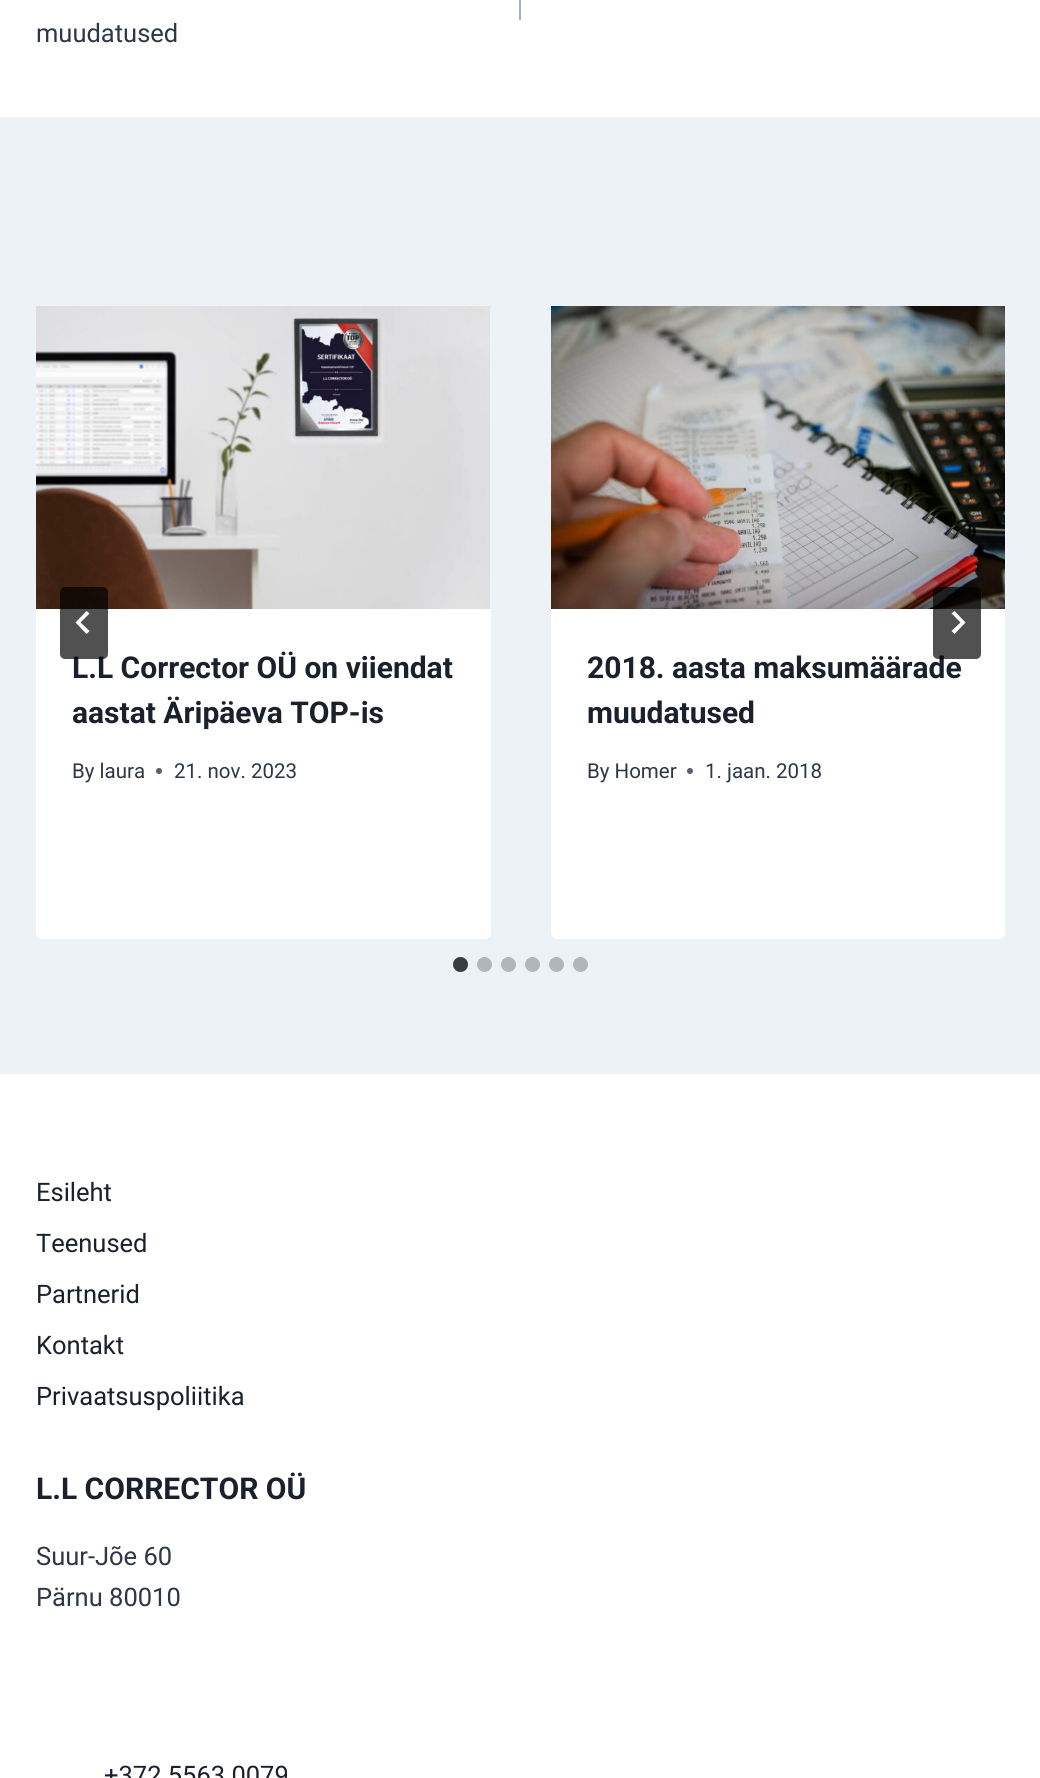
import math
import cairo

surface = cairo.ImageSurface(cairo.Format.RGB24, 1040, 1778)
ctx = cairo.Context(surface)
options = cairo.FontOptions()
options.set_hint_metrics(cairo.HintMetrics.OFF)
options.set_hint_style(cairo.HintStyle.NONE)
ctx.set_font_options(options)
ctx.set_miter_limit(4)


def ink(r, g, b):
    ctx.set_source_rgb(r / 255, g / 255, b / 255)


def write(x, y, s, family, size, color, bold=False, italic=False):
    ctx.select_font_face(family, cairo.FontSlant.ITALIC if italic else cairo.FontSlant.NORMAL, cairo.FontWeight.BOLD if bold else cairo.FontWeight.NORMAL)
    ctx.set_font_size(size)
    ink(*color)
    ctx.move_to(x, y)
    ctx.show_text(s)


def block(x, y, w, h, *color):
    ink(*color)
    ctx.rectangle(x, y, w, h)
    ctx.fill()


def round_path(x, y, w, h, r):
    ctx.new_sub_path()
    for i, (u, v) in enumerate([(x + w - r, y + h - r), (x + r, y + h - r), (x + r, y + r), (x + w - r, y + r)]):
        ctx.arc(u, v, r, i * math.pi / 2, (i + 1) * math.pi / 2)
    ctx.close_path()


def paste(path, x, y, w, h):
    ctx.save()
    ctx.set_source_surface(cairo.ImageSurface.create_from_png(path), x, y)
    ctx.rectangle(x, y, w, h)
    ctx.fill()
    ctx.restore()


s1 = dict(family="Roboto", size=25.5, color=(45, 55, 72))
s2 = dict(family="Roboto", size=30, color=(26, 32, 44), bold=True)
s3 = dict(family="Roboto", size=20.5, color=(45, 55, 72))
s4 = dict(family="Roboto", size=25.5, color=(26, 32, 44))

ink(255, 255, 255)
ctx.paint()
block(519, 0, 2, 20, 160, 174, 192)
write(36, 42, "muudatused", **s1)
block(0, 117, 1040, 957, 237, 242, 247)
ink(255, 255, 255)
round_path(36, 306, 455, 633, 6)
ctx.fill()
paste("pic1.png", 36, 306, 455, 303)
write(72, 678, "L.L Corrector OÜ on viiendat", **s2)
ctx.set_source_rgba(0, 0, 0, 0.68)
round_path(60, 587, 48, 72, 5)
ctx.fill()
ink(255, 255, 255)
ctx.new_path()
ctx.move_to(86.5, 611)
ctx.line_to(89.5, 613.5)
ctx.line_to(80.5, 622.5)
ctx.line_to(89.5, 631)
ctx.line_to(86.5, 634)
ctx.line_to(75.5, 622.5)
ctx.close_path()
ctx.fill()
round_path(551, 306, 454, 633, 6)
ctx.fill()
paste("pic2.png", 551, 306, 454, 303)
write(587, 678, "2018. aasta maksumäärade", **s2)
ctx.set_source_rgba(0, 0, 0, 0.68)
round_path(933, 587, 48, 72, 5)
ctx.fill()
ink(255, 255, 255)
ctx.new_path()
ctx.move_to(954.5, 611)
ctx.line_to(951.5, 613.5)
ctx.line_to(960.5, 622.5)
ctx.line_to(951.5, 631)
ctx.line_to(954.5, 634)
ctx.line_to(965.5, 622.5)
ctx.close_path()
ctx.fill()
write(72, 723, "aastat Äripäeva TOP-is", **s2)
write(72, 778, "By laura", **s3)
ink(87, 95, 109)
ctx.new_path()
ctx.arc(159, 771, 3, 0, 2 * math.pi)
ctx.fill()
write(174, 778, "21. nov. 2023", **s3)
write(587, 723, "muudatused", **s2)
write(587, 778, "By Homer", **s3)
ink(87, 95, 109)
ctx.new_path()
ctx.arc(690, 771, 3, 0, 2 * math.pi)
ctx.fill()
write(705, 778, "1. jaan. 2018", **s3)
ink(59, 61, 62)
ctx.new_path()
ctx.arc(460.5, 964.5, 7.5, 0, 2 * math.pi)
ctx.fill()
ink(178, 182, 185)
ctx.arc(484.5, 964.5, 7.5, 0, 2 * math.pi)
ctx.fill()
ctx.arc(508.5, 964.5, 7.5, 0, 2 * math.pi)
ctx.fill()
ctx.arc(532.5, 964.5, 7.5, 0, 2 * math.pi)
ctx.fill()
ctx.arc(556.5, 964.5, 7.5, 0, 2 * math.pi)
ctx.fill()
ctx.arc(580.5, 964.5, 7.5, 0, 2 * math.pi)
ctx.fill()
write(36, 1201, "Esileht", **s4)
write(36, 1252, "Teenused", **s4)
write(36, 1303, "Partnerid", **s4)
write(36, 1354, "Kontakt", **s4)
write(36, 1405, "Privaatsuspoliitika", **s4)
write(36, 1499, "L.L CORRECTOR OÜ", **s2)
write(36, 1565, "Suur-Jõe 60", **s1)
write(36, 1606, "Pärnu 80010", **s1)
write(104, 1784, "+372 5563 0079", **s4)
surface.write_to_png("screenshot.png")
